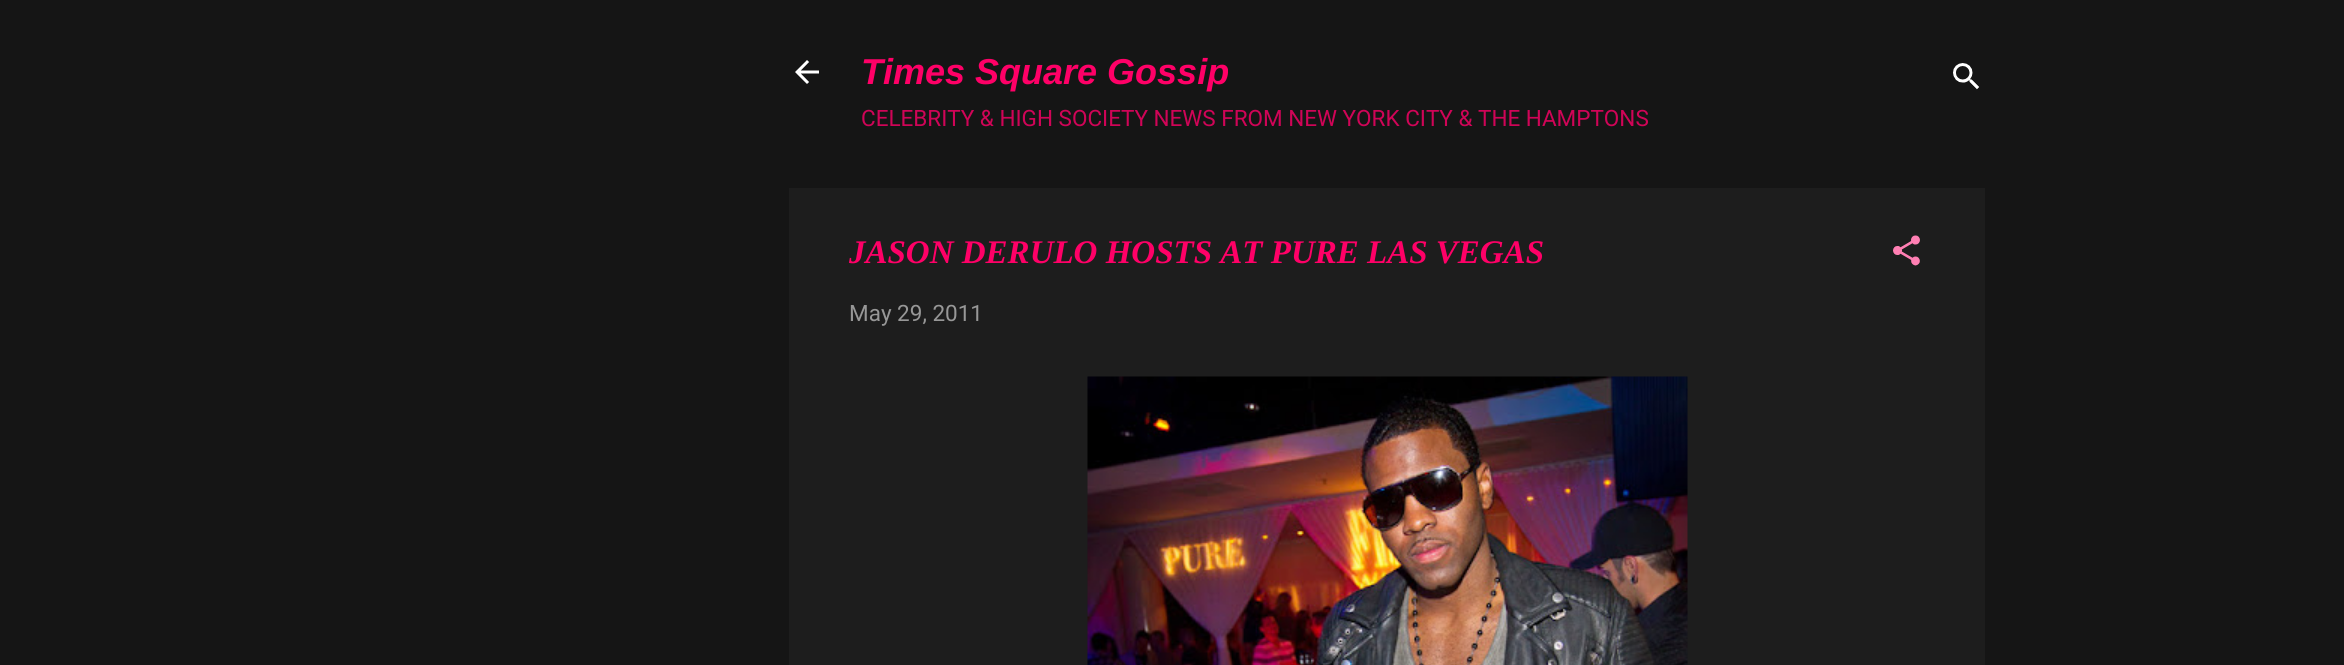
import math
import cairo

surface = cairo.ImageSurface(cairo.Format.RGB24, 2344, 665)
ctx = cairo.Context(surface)
options = cairo.FontOptions()
options.set_hint_metrics(cairo.HintMetrics.OFF)
options.set_hint_style(cairo.HintStyle.NONE)
ctx.set_font_options(options)
ctx.set_miter_limit(4)


def ink(r, g, b):
    ctx.set_source_rgb(r / 255, g / 255, b / 255)


def write(x, y, s, family, size, color, bold=False, italic=False):
    ctx.select_font_face(family, cairo.FontSlant.ITALIC if italic else cairo.FontSlant.NORMAL, cairo.FontWeight.BOLD if bold else cairo.FontWeight.NORMAL)
    ctx.set_font_size(size)
    ink(*color)
    ctx.move_to(x, y)
    ctx.show_text(s)


def block(x, y, w, h, *color):
    ink(*color)
    ctx.rectangle(x, y, w, h)
    ctx.fill()


def paste(path, x, y, w, h):
    ctx.save()
    ctx.set_source_surface(cairo.ImageSurface.create_from_png(path), x, y)
    ctx.rectangle(x, y, w, h)
    ctx.fill()
    ctx.restore()


s1 = dict(family="Liberation Sans", size=36, color=(255, 0, 103), bold=True, italic=True)
s2 = dict(family="Roboto", size=22.5, color=(208, 4, 87))
s3 = dict(family="Liberation Serif", size=33, color=(255, 0, 103), bold=True, italic=True)
s4 = dict(family="Roboto", size=22.5, color=(151, 151, 151))

ink(21, 21, 21)
ctx.paint()
paste("pic1.png", 795, 60, 24, 24)
write(861, 84, "Times Square Gossip", **s1)
write(861, 126, "CELEBRITY & HIGH SOCIETY NEWS FROM NEW YORK CITY & THE HAMPTONS", **s2)
paste("pic2.png", 1953, 63, 26, 27)
block(789, 188, 1196, 477, 29, 29, 29)
write(849, 263, "JASON DERULO HOSTS AT PURE LAS VEGAS", **s3)
paste("pic3.png", 1893, 235, 27, 31)
write(849, 321, "May 29, 2011", **s4)
paste("pic4.png", 1087, 376, 601, 289)
surface.write_to_png("screenshot.png")
